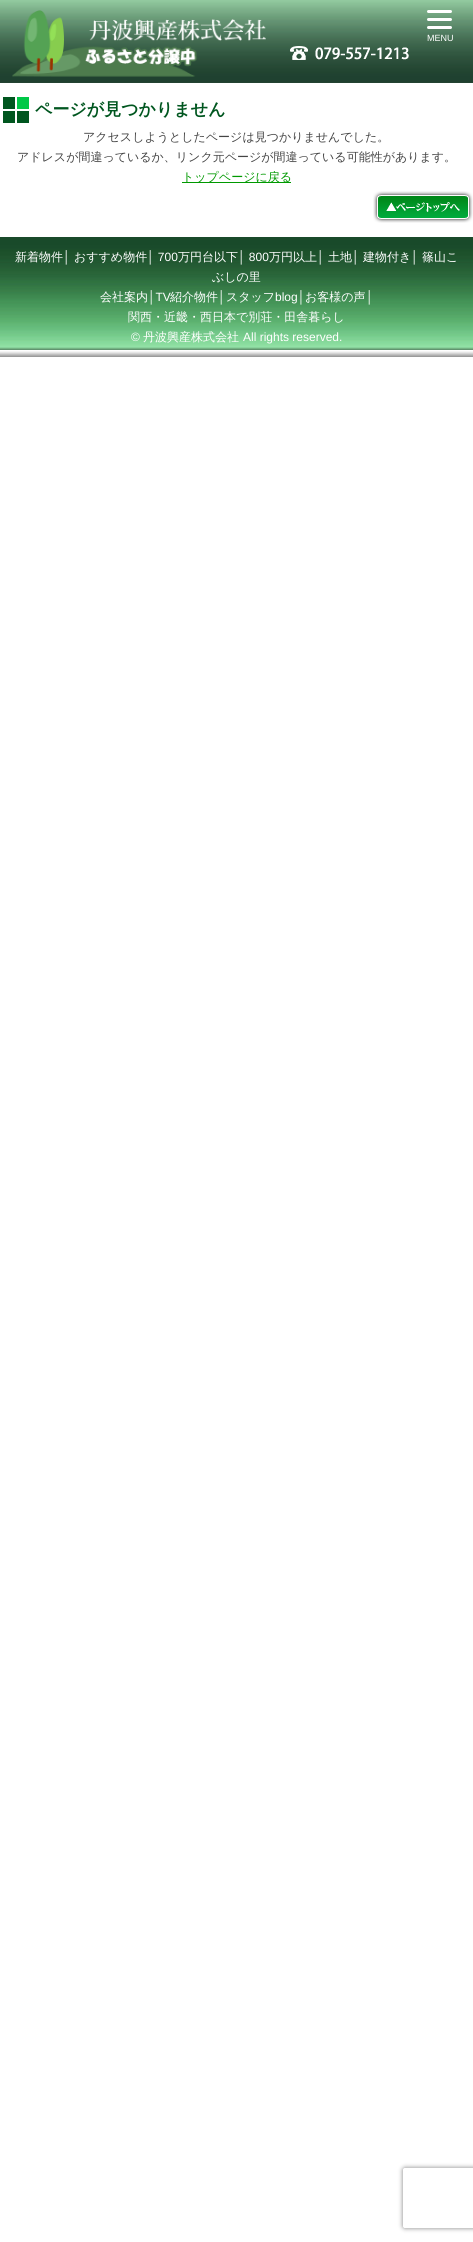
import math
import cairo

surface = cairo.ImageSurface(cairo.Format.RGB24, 473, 2242)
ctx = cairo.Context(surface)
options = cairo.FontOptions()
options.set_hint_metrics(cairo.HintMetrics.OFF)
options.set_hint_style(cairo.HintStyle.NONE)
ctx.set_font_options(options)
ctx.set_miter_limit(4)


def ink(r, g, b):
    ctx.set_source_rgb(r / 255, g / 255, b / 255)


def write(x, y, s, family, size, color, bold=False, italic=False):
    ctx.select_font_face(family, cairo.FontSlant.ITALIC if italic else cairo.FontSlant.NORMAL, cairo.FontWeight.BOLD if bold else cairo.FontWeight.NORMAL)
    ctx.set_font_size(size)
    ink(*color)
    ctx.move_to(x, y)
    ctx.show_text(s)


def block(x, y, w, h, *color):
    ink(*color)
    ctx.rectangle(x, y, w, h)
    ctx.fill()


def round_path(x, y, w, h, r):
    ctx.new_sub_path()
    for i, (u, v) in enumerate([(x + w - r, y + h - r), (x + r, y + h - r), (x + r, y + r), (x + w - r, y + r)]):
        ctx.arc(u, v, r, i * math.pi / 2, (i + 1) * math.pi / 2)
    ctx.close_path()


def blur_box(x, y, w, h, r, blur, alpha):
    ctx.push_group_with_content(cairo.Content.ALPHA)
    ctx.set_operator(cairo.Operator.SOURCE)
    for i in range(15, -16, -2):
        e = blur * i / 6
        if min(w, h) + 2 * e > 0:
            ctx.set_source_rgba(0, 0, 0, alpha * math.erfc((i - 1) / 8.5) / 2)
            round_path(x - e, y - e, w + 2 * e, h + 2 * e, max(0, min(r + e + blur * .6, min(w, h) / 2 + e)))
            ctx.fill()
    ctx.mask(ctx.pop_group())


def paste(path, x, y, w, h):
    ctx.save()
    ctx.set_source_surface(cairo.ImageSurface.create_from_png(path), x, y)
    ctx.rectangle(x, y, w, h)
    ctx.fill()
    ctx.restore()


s1 = dict(family="Liberation Sans", size=9, color=(255, 255, 255))
s2 = dict(family="WenQuanYi Zen Hei", size=17, color=(0, 86, 31), bold=True)
s3 = dict(family="WenQuanYi Zen Hei Medium", size=12, color=(68, 68, 68))
s4 = dict(family="WenQuanYi Zen Hei Medium", size=12, color=(0, 153, 0))
s5 = dict(family="WenQuanYi Zen Hei Medium", size=12, color=(255, 255, 255))
s6 = dict(family="Liberation Sans", size=12, color=(255, 255, 255))

ink(255, 255, 255)
ctx.paint()
paste("pic1.png", 0, 0, 473, 83)
paste("pic2.png", 12, 10, 254, 67)
paste("pic3.png", 290, 46, 119, 14)
ink(255, 255, 255)
round_path(427, 10, 25, 3, 1.5)
ctx.fill()
round_path(427, 18, 25, 3, 1.5)
ctx.fill()
round_path(427, 26, 25, 3, 1.5)
ctx.fill()
write(427, 41, "MENU", **s1)
paste("pic4.png", 3, 97, 26, 26)
write(35, 115, "ページが見つかりません", **s2)
write(83, 141, "アクセスしようとしたページは見つかりませんでした。", **s3)
write(17, 161, "アドレスが間違っているか、リンク元ページが間違っている可能性があります。", **s3)
block(182, 182, 109, 1, 0, 153, 0)
write(182, 181, "トップページに戻る", **s4)
paste("pic5.png", 373, 191, 100, 32)
paste("pic6.png", 0, 237, 473, 120)
write(15, 261, "新着物件", **s5)
write(63, 261, "│", **s6)
write(74, 261, "おすすめ物件", **s5)
write(147, 261, "│ 700", **s6)
write(178, 261, "万円台以下", **s5)
write(238, 261, "│ 800", **s6)
write(269, 261, "万円以上", **s5)
write(317, 261, "│", **s6)
write(328, 261, "土地", **s5)
write(352, 261, "│", **s6)
write(363, 261, "建物付き", **s5)
write(411, 261, "│", **s6)
write(422, 261, "篠山こ", **s5)
write(212, 281, "ぶしの里", **s5)
write(100, 301, "会社案内", **s5)
write(148, 301, "│TV", **s6)
write(170, 301, "紹介物件", **s5)
write(218, 301, "│", **s6)
write(226, 301, "スタッフ", **s5)
write(275, 301, "blog│", **s6)
write(305, 301, "お客様の声", **s5)
write(366, 301, "│", **s6)
write(128, 321, "関西・近畿・西日本で別荘・田舎暮らし", **s5)
write(131, 341, "©", **s6)
write(143, 341, "丹波興産株式会社", **s5)
write(243, 341, "All rights reserved.", **s6)
ctx.save()
ctx.set_fill_rule(cairo.FillRule.EVEN_ODD)
ctx.new_path()
ctx.move_to(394, 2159)
ctx.line_to(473, 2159)
ctx.line_to(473, 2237)
ctx.line_to(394, 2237)
ctx.close_path()
ctx.move_to(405, 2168)
ctx.line_to(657, 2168)
ctx.curve_to(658, 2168, 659, 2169, 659, 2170)
ctx.line_to(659, 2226)
ctx.curve_to(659, 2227, 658, 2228, 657, 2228)
ctx.line_to(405, 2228)
ctx.curve_to(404, 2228, 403, 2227, 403, 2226)
ctx.line_to(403, 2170)
ctx.curve_to(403, 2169, 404, 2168, 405, 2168)
ctx.close_path()
ctx.clip()
ink(128, 128, 128)
blur_box(403, 2168, 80, 60, 2, 2.5, 1)
ctx.restore()
surface.write_to_png("screenshot.png")
